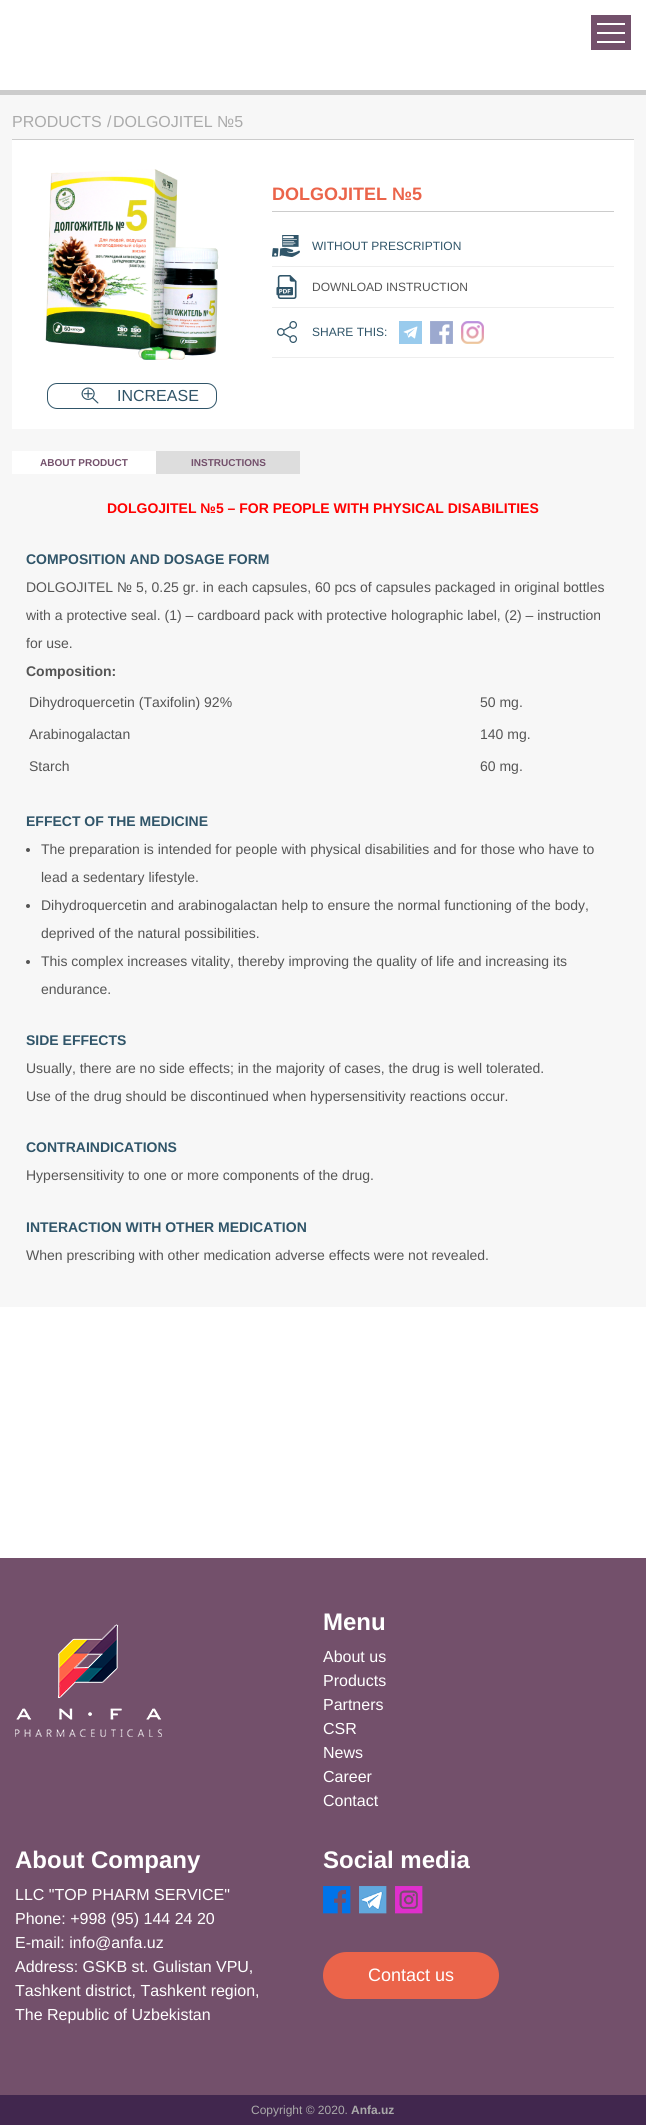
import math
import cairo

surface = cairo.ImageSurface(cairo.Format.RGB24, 646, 2125)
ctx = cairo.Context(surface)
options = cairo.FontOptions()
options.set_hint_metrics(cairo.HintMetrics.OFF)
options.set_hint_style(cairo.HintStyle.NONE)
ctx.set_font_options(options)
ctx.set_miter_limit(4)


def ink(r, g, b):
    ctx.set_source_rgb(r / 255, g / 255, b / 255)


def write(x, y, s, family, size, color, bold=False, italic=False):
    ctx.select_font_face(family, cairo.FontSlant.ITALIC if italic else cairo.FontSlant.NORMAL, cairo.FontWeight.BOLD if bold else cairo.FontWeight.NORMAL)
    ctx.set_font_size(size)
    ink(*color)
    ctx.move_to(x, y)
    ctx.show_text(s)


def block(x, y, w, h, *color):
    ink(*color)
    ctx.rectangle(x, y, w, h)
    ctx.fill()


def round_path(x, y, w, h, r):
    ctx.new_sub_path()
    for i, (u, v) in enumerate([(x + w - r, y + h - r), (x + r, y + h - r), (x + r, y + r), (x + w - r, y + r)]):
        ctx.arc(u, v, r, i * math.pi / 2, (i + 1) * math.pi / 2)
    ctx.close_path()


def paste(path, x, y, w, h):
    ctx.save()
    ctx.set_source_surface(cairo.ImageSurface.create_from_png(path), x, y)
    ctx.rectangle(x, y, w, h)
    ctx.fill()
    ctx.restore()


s1 = dict(family="Liberation Sans", size=16, color=(170, 170, 170))
s2 = dict(family="Liberation Sans", size=18, color=(235, 100, 74), bold=True)
s3 = dict(family="Liberation Sans", size=12, color=(48, 85, 105))
s4 = dict(family="Liberation Sans", size=12, color=(85, 85, 85))
s5 = dict(family="Liberation Sans", size=16, color=(48, 85, 105))
s6 = dict(family="Liberation Sans", size=10, color=(115, 80, 107), bold=True)
s7 = dict(family="Liberation Sans", size=14, color=(255, 0, 0), bold=True)
s8 = dict(family="Liberation Sans", size=14, color=(48, 85, 105), bold=True)
s9 = dict(family="Liberation Sans", size=14, color=(85, 85, 85))
s10 = dict(family="Liberation Sans", size=14, color=(85, 85, 85), bold=True)
s11 = dict(family="Liberation Sans", size=24, color=(255, 255, 255), bold=True)
s12 = dict(family="Liberation Sans", size=16, color=(255, 255, 255))
s13 = dict(family="Liberation Sans", size=18, color=(255, 255, 255))
s14 = dict(family="Liberation Sans", size=12, color=(170, 170, 170))
s15 = dict(family="Liberation Sans", size=12, color=(170, 170, 170), bold=True)

ink(255, 255, 255)
ctx.paint()
block(591, 15, 40, 35, 115, 80, 107)
block(597, 32, 28, 2, 255, 255, 255)
block(597, 23, 28, 2, 255, 255, 255)
block(597, 41, 28, 2, 255, 255, 255)
block(0, 95, 646, 1212, 247, 247, 247)
block(0, 90, 646, 5, 204, 204, 204)
write(12, 127, "PRODUCTS", **s1)
write(107, 127, "/", **s1)
write(113, 127, "DOLGOJITEL №5", **s1)
block(12, 140, 622, 289, 255, 255, 255)
block(12, 139, 622, 1, 204, 204, 204)
block(272, 211, 342, 1, 204, 204, 204)
write(272, 200, "DOLGOJITEL №5", **s2)
paste("pic1.png", 272, 235, 28, 22)
block(272, 266, 342, 1, 238, 238, 238)
write(312, 250, "WITHOUT PRESCRIPTION", **s3)
paste("pic2.png", 276, 275, 21, 24)
block(272, 307, 342, 1, 238, 238, 238)
write(312, 291, "DOWNLOAD INSTRUCTION", **s4)
paste("pic3.png", 277, 321, 20, 22)
block(272, 357, 342, 1, 238, 238, 238)
write(312, 336, "SHARE THIS:", **s3)
paste("pic4.png", 399, 321, 23, 23)
paste("pic5.png", 430, 321, 23, 23)
paste("pic6.png", 461, 321, 23, 23)
paste("pic7.png", 45, 169, 174, 191)
paste("pic8.png", 81, 387, 18, 17)
round_path(47.5, 383.5, 169, 25, 9.5)
ctx.set_line_width(1)
ctx.stroke()
write(117, 401, "INCREASE", **s5)
block(12, 451, 144, 23, 255, 255, 255)
write(40, 466, "ABOUT PRODUCT", **s6)
block(156, 451, 144, 23, 221, 221, 221)
write(191, 466, "INSTRUCTIONS", **s6)
write(107, 513, "DOLGOJITEL №5 – FOR PEOPLE WITH PHYSICAL DISABILITIES", **s7)
write(26, 564, "COMPOSITION AND DOSAGE FORM", **s8)
write(26, 592, "DOLGOJITEL № 5, 0.25 gr. in each capsules, 60 pcs of capsules packaged in original bottles", **s9)
write(26, 620, "with a protective seal. (1) – cardboard pack with protective holographic label, (2) – instruction", **s9)
write(26, 648, "for use.", **s9)
write(26, 676, "Composition:", **s10)
write(29, 707, "Dihydroquercetin (Taxifolin) 92%", **s9)
write(480, 707, "50 mg.", **s9)
write(29, 739, "Arabinogalactan", **s9)
write(480, 739, "140 mg.", **s9)
write(29, 771, "Starch", **s9)
write(480, 771, "60 mg.", **s9)
write(26, 826, "EFFECT OF THE MEDICINE", **s8)
ink(85, 85, 85)
ctx.new_path()
ctx.arc(28, 850, 2, 0, 2 * math.pi)
ctx.fill()
write(41, 854, "The preparation is intended for people with physical disabilities and for those who have to", **s9)
write(41, 882, "lead a sedentary lifestyle.", **s9)
ctx.new_path()
ctx.arc(28, 906, 2, 0, 2 * math.pi)
ctx.fill()
write(41, 910, "Dihydroquercetin and arabinogalactan help to ensure the normal functioning of the body,", **s9)
write(41, 938, "deprived of the natural possibilities.", **s9)
ctx.new_path()
ctx.arc(28, 962, 2, 0, 2 * math.pi)
ctx.fill()
write(41, 966, "This complex increases vitality, thereby improving the quality of life and increasing its", **s9)
write(41, 994, "endurance.", **s9)
write(26, 1045, "SIDE EFFECTS", **s8)
write(26, 1073, "Usually, there are no side effects; in the majority of cases, the drug is well tolerated.", **s9)
write(26, 1101, "Use of the drug should be discontinued when hypersensitivity reactions occur.", **s9)
write(26, 1152, "CONTRAINDICATIONS", **s8)
write(26, 1180, "Hypersensitivity to one or more components of the drug.", **s9)
write(26, 1232, "INTERACTION WITH OTHER MEDICATION", **s8)
write(26, 1260, "When prescribing with other medication adverse effects were not revealed.", **s9)
block(0, 1558, 646, 537, 115, 80, 107)
paste("pic9.png", 15, 1624, 147, 113)
write(323, 1630, "Menu", **s11)
write(323, 1662, "About us", **s12)
write(323, 1686, "Products", **s12)
write(323, 1710, "Partners", **s12)
write(323, 1734, "CSR", **s12)
write(323, 1758, "News", **s12)
write(323, 1782, "Career", **s12)
write(323, 1806, "Contact", **s12)
write(15, 1868, "About Company", **s11)
write(15, 1900, "LLC \"TOP PHARM SERVICE\"", **s12)
write(15, 1924, "Phone: +998 (95) 144 24 20", **s12)
write(15, 1948, "E-mail: info@anfa.uz", **s12)
write(15, 1972, "Address: GSKB st. Gulistan VPU,", **s12)
write(15, 1996, "Tashkent district, Tashkent region,", **s12)
write(15, 2020, "The Republic of Uzbekistan", **s12)
write(323, 1868, "Social media", **s11)
paste("pic10.png", 323, 1886, 28, 28)
paste("pic11.png", 359, 1886, 28, 28)
paste("pic12.png", 395, 1886, 28, 28)
ink(235, 100, 74)
round_path(323, 1952, 176, 47, 23.5)
ctx.fill()
write(368, 1981, "Contact us", **s13)
block(0, 2095, 646, 30, 65, 39, 78)
write(251, 2114, "Copyright © 2020.", **s14)
write(351, 2114, "Anfa.uz", **s15)
surface.write_to_png("screenshot.png")
